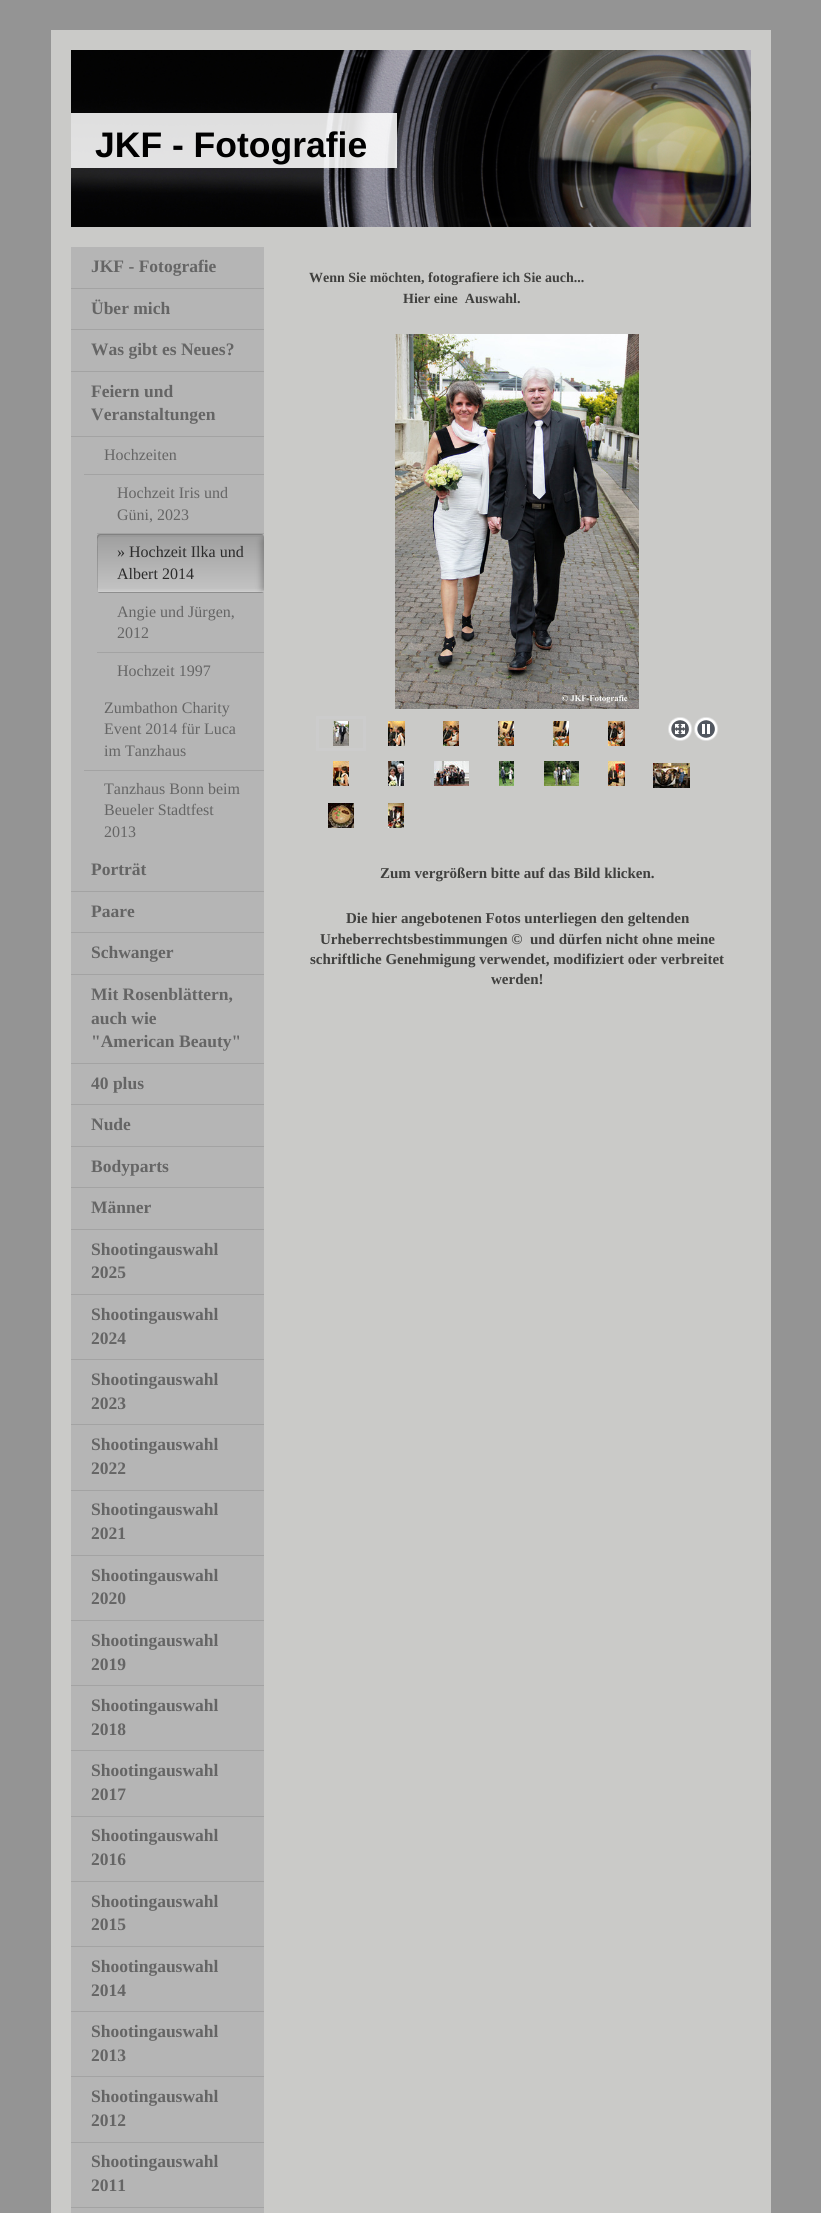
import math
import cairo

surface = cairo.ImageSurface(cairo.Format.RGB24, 821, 2213)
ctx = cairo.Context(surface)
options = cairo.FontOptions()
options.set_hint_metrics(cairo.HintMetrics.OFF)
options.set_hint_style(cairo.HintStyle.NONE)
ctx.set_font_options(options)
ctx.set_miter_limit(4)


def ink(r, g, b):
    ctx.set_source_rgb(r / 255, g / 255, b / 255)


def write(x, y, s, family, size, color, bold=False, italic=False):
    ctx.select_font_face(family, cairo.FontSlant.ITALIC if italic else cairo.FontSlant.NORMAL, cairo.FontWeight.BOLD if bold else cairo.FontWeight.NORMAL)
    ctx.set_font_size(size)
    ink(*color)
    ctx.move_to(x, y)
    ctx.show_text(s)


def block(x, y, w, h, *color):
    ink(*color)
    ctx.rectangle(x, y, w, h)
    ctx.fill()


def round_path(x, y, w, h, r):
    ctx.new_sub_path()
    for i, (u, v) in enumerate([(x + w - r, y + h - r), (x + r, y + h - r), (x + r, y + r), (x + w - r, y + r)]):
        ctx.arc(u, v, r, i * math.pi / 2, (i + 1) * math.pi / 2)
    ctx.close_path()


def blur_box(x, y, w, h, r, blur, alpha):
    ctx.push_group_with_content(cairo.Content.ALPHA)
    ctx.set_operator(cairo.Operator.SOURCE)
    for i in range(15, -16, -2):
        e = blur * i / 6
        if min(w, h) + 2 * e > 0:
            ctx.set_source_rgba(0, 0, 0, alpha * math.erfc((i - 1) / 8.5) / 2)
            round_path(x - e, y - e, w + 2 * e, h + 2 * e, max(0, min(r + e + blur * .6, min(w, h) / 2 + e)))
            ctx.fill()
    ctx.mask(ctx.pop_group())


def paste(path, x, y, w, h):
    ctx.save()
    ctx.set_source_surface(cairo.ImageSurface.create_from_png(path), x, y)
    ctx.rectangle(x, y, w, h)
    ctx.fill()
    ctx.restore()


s1 = dict(family="Liberation Sans", size=35.5, color=(0, 0, 0), bold=True)
s2 = dict(family="Liberation Serif", size=17.5, color=(101, 101, 101), bold=True)
s3 = dict(family="Liberation Serif", size=16, color=(101, 101, 101))
s4 = dict(family="Liberation Serif", size=16, color=(43, 43, 43))
s5 = dict(family="Liberation Serif", size=14, color=(64, 64, 62), bold=True)
s6 = dict(family="Liberation Serif", size=15, color=(64, 64, 62), bold=True)

ink(148, 148, 148)
ctx.paint()
block(51, 30, 720, 2183, 202, 202, 200)
paste("pic1.png", 71, 50, 680, 177)
ctx.set_source_rgba(1, 1, 1, 0.87)
ctx.rectangle(71, 113, 326, 55)
ctx.fill()
write(95, 157, "JKF - Fotografie", **s1)
block(71, 247, 193, 1966, 181, 181, 181)
block(99, 592, 164, 1, 163, 163, 163)
block(71, 288, 193, 1, 163, 163, 163)
write(91, 272, "JKF - Fotografie", **s2)
block(71, 329, 193, 1, 163, 163, 163)
write(91, 314, "Über mich", **s2)
block(71, 371, 193, 1, 163, 163, 163)
write(91, 355, "Was gibt es Neues?", **s2)
block(71, 436, 193, 1, 163, 163, 163)
write(91, 397, "Feiern und", **s2)
write(91, 420, "Veranstaltungen", **s2)
block(84, 474, 180, 1, 163, 163, 163)
write(104, 460, "Hochzeiten", **s3)
block(97, 533, 167, 1, 163, 163, 163)
write(117, 498, "Hochzeit Iris und", **s3)
write(117, 520, "Güni, 2023", **s3)
ctx.save()
round_path(97, 534, 167, 59, 3)
ctx.clip()
gradient = cairo.LinearGradient(97, 592, 97, 534)
gradient.add_color_stop_rgba(0, 0.769, 0.769, 0.769, 1)
gradient.add_color_stop_rgba(1, 0.62, 0.62, 0.62, 1)
ctx.set_source(gradient)
ctx.new_path()
ctx.move_to(100, 534)
ctx.line_to(261, 534)
ctx.curve_to(262.5, 534, 264, 535.5, 264, 537)
ctx.line_to(264, 592)
ctx.line_to(97, 592)
ctx.line_to(97, 537)
ctx.curve_to(97, 535.5, 98.5, 534, 100, 534)
ctx.close_path()
ctx.fill()
gradient = cairo.LinearGradient(97, 650, 97, 592)
gradient.add_color_stop_rgba(0, 0.69, 0.69, 0.69, 1)
gradient.add_color_stop_rgba(1, 0.557, 0.557, 0.557, 1)
ctx.set_source(gradient)
ctx.rectangle(97, 592, 167, 1)
ctx.fill()
ctx.restore()
ctx.set_source_rgba(0, 0, 0, 0.15)
ctx.new_path()
ctx.move_to(101, 535)
ctx.line_to(263, 535)
ctx.curve_to(263, 534, 262, 534, 261, 534)
ctx.line_to(100, 534)
ctx.curve_to(98, 534, 97, 535, 97, 537)
ctx.line_to(97, 590)
ctx.curve_to(97, 591, 97, 591, 98, 592)
ctx.line_to(98, 547)
ctx.curve_to(98, 545, 96, 535, 101, 535)
ctx.close_path()
ctx.fill()
ctx.set_source_rgba(0, 0, 0, 0.04)
ctx.new_path()
ctx.move_to(100, 537)
ctx.line_to(261, 537)
ctx.curve_to(263, 537, 264, 538, 264, 540)
ctx.line_to(264, 537)
ctx.curve_to(264, 535, 263, 534, 261, 534)
ctx.line_to(100, 534)
ctx.curve_to(98, 534, 97, 535, 97, 537)
ctx.line_to(97, 540)
ctx.curve_to(97, 538, 98, 537, 100, 537)
ctx.close_path()
ctx.fill()
ctx.set_source_rgba(1, 1, 1, 0.08)
ctx.new_path()
ctx.move_to(97, 587)
ctx.line_to(97, 590)
ctx.curve_to(97, 591, 98, 592, 100, 592)
ctx.line_to(261, 592)
ctx.curve_to(263, 592, 264, 591, 264, 590)
ctx.line_to(264, 587)
ctx.curve_to(264, 588, 263, 589, 261, 589)
ctx.line_to(100, 589)
ctx.curve_to(98, 589, 97, 588, 97, 587)
ctx.close_path()
ctx.fill()
ctx.set_source_rgba(1, 1, 1, 0.1)
ctx.new_path()
ctx.move_to(97, 589)
ctx.curve_to(97, 591, 98, 592, 100, 592)
ctx.line_to(261, 592)
ctx.curve_to(263, 592, 264, 591, 264, 589)
ctx.curve_to(264, 590, 263, 591, 261, 591)
ctx.line_to(100, 591)
ctx.curve_to(98, 591, 97, 590, 97, 589)
ctx.close_path()
ctx.fill()
write(117, 557, "» Hochzeit Ilka und", **s4)
write(117, 579, "Albert 2014", **s4)
ctx.save()
ctx.new_path()
ctx.move_to(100, 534)
ctx.line_to(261, 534)
ctx.curve_to(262.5, 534, 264, 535.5, 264, 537)
ctx.line_to(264, 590)
ctx.curve_to(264, 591, 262.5, 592, 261, 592)
ctx.line_to(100, 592)
ctx.curve_to(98.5, 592, 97, 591, 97, 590)
ctx.line_to(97, 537)
ctx.curve_to(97, 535.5, 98.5, 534, 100, 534)
ctx.close_path()
ctx.clip()
ink(0, 0, 0)
blur_box(262, 536, 16, 58, 8, 3.5, 0.3)
ctx.restore()
block(97, 652, 167, 1, 163, 163, 163)
write(117, 617, "Angie und Jürgen,", **s3)
write(117, 638, "2012", **s3)
write(117, 676, "Hochzeit 1997", **s3)
block(84, 770, 180, 1, 163, 163, 163)
write(104, 713, "Zumbathon Charity", **s3)
write(104, 734, "Event 2014 für Luca", **s3)
write(104, 756, "im Tanzhaus", **s3)
write(104, 794, "Tanzhaus Bonn beim", **s3)
write(104, 815, "Beueler Stadtfest", **s3)
write(104, 837, "2013", **s3)
block(71, 891, 193, 1, 163, 163, 163)
write(91, 875, "Porträt", **s2)
block(71, 932, 193, 1, 163, 163, 163)
write(91, 917, "Paare", **s2)
block(71, 974, 193, 1, 163, 163, 163)
write(91, 958, "Schwanger", **s2)
block(71, 1063, 193, 1, 163, 163, 163)
write(91, 1000, "Mit Rosenblättern,", **s2)
write(91, 1024, "auch wie", **s2)
write(91, 1047, "\"American Beauty\"", **s2)
block(71, 1104, 193, 1, 163, 163, 163)
write(91, 1089, "40 plus", **s2)
block(71, 1146, 193, 1, 163, 163, 163)
write(91, 1130, "Nude", **s2)
block(71, 1187, 193, 1, 163, 163, 163)
write(91, 1172, "Bodyparts", **s2)
block(71, 1229, 193, 1, 163, 163, 163)
write(91, 1213, "Männer", **s2)
block(71, 1294, 193, 1, 163, 163, 163)
write(91, 1255, "Shootingauswahl", **s2)
write(91, 1278, "2025", **s2)
block(71, 1359, 193, 1, 163, 163, 163)
write(91, 1320, "Shootingauswahl", **s2)
write(91, 1344, "2024", **s2)
block(71, 1424, 193, 1, 163, 163, 163)
write(91, 1385, "Shootingauswahl", **s2)
write(91, 1409, "2023", **s2)
block(71, 1490, 193, 1, 163, 163, 163)
write(91, 1450, "Shootingauswahl", **s2)
write(91, 1474, "2022", **s2)
block(71, 1555, 193, 1, 163, 163, 163)
write(91, 1515, "Shootingauswahl", **s2)
write(91, 1539, "2021", **s2)
block(71, 1620, 193, 1, 163, 163, 163)
write(91, 1581, "Shootingauswahl", **s2)
write(91, 1604, "2020", **s2)
block(71, 1685, 193, 1, 163, 163, 163)
write(91, 1646, "Shootingauswahl", **s2)
write(91, 1670, "2019", **s2)
block(71, 1750, 193, 1, 163, 163, 163)
write(91, 1711, "Shootingauswahl", **s2)
write(91, 1735, "2018", **s2)
block(71, 1816, 193, 1, 163, 163, 163)
write(91, 1776, "Shootingauswahl", **s2)
write(91, 1800, "2017", **s2)
block(71, 1881, 193, 1, 163, 163, 163)
write(91, 1841, "Shootingauswahl", **s2)
write(91, 1865, "2016", **s2)
block(71, 1946, 193, 1, 163, 163, 163)
write(91, 1907, "Shootingauswahl", **s2)
write(91, 1930, "2015", **s2)
block(71, 2011, 193, 1, 163, 163, 163)
write(91, 1972, "Shootingauswahl", **s2)
write(91, 1996, "2014", **s2)
block(71, 2076, 193, 1, 163, 163, 163)
write(91, 2037, "Shootingauswahl", **s2)
write(91, 2061, "2013", **s2)
block(71, 2142, 193, 1, 163, 163, 163)
write(91, 2102, "Shootingauswahl", **s2)
write(91, 2126, "2012", **s2)
block(71, 2207, 193, 1, 163, 163, 163)
write(91, 2167, "Shootingauswahl", **s2)
write(91, 2191, "2011", **s2)
write(309, 282, "Wenn Sie möchten, fotografiere ich Sie auch...", **s5)
write(403, 303, "Hier eine  Auswahl.", **s5)
paste("pic2.png", 395, 334, 244, 375)
ctx.rectangle(317.5, 717.5, 47, 32)
ink(204, 204, 204)
ctx.set_line_width(3)
ctx.stroke()
paste("pic3.png", 333, 721, 16, 25)
paste("pic4.png", 388, 721, 17, 25)
paste("pic5.png", 443, 721, 16, 25)
paste("pic6.png", 498, 721, 16, 25)
paste("pic7.png", 553, 721, 16, 25)
paste("pic8.png", 608, 721, 17, 25)
paste("pic9.png", 668, 717, 25, 24)
paste("pic10.png", 694, 717, 25, 24)
paste("pic11.png", 333, 761, 16, 25)
paste("pic12.png", 388, 761, 16, 25)
paste("pic13.png", 434, 761, 35, 25)
paste("pic14.png", 499, 761, 15, 25)
paste("pic15.png", 544, 761, 35, 25)
paste("pic16.png", 608, 761, 17, 25)
paste("pic17.png", 653, 763, 37, 25)
paste("pic18.png", 328, 803, 26, 25)
paste("pic19.png", 388, 803, 16, 25)
write(380, 878, "Zum vergrößern bitte auf das Bild klicken.", **s6)
write(346, 923, "Die hier angebotenen Fotos unterliegen den geltenden", **s6)
write(320, 944, "Urheberrechtsbestimmungen ©  und dürfen nicht ohne meine", **s6)
write(310, 964, "schriftliche Genehmigung verwendet, modifiziert oder verbreitet", **s6)
write(491, 984, "werden!", **s6)
surface.write_to_png("screenshot.png")
